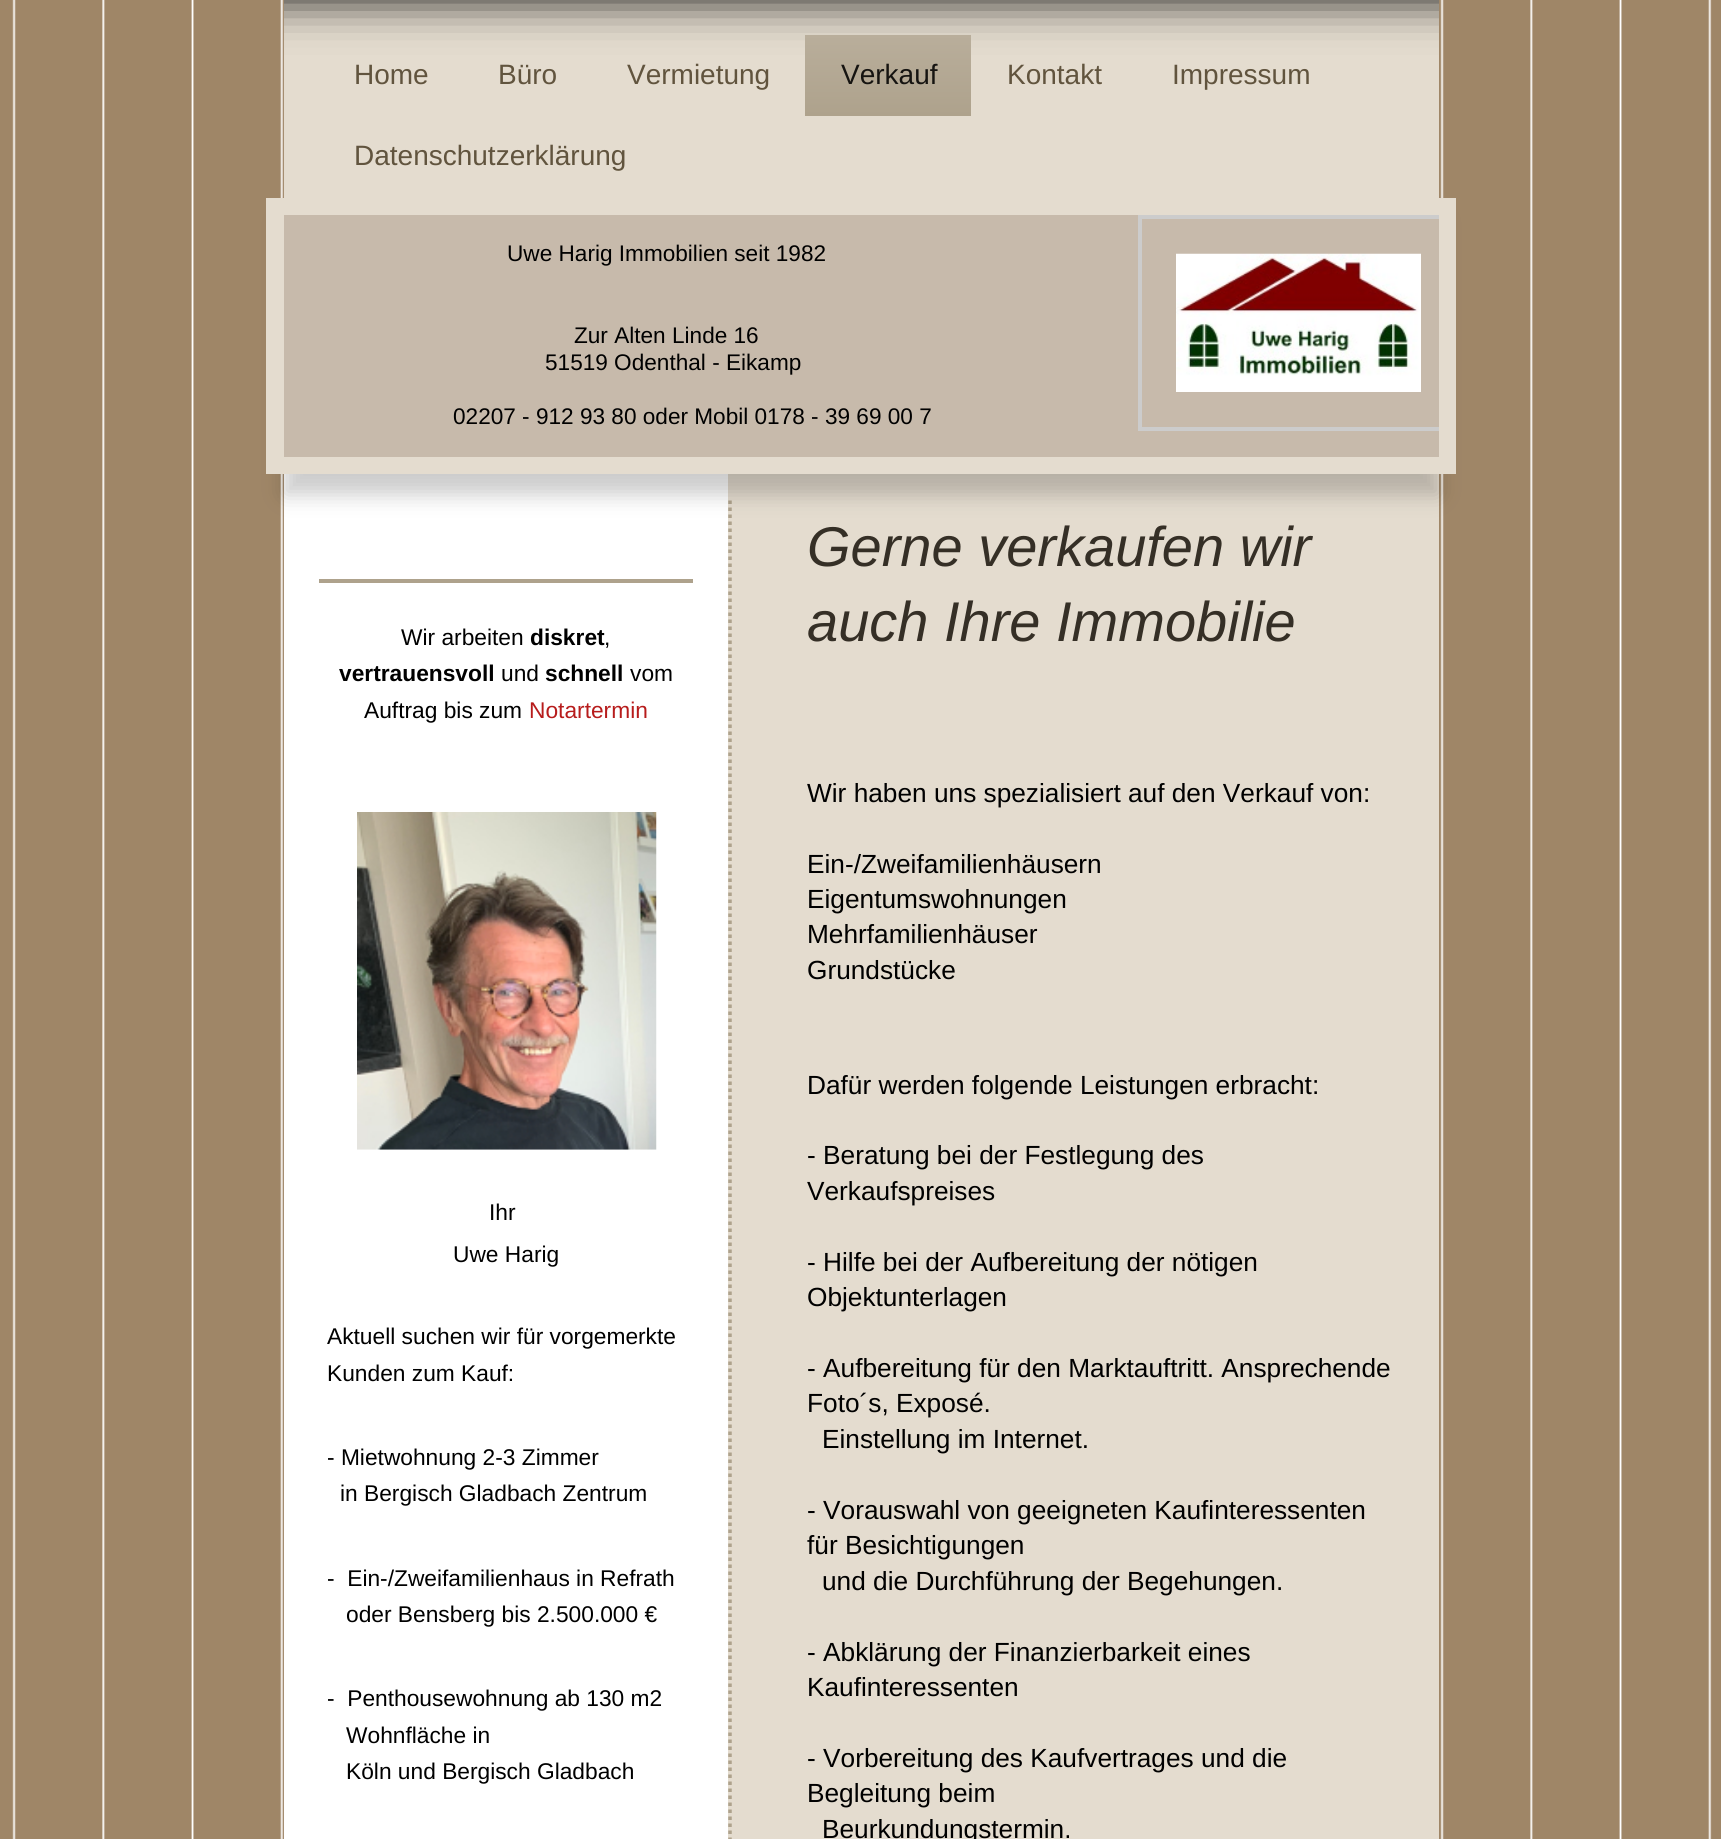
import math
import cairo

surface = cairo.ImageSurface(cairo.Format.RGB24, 1721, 1839)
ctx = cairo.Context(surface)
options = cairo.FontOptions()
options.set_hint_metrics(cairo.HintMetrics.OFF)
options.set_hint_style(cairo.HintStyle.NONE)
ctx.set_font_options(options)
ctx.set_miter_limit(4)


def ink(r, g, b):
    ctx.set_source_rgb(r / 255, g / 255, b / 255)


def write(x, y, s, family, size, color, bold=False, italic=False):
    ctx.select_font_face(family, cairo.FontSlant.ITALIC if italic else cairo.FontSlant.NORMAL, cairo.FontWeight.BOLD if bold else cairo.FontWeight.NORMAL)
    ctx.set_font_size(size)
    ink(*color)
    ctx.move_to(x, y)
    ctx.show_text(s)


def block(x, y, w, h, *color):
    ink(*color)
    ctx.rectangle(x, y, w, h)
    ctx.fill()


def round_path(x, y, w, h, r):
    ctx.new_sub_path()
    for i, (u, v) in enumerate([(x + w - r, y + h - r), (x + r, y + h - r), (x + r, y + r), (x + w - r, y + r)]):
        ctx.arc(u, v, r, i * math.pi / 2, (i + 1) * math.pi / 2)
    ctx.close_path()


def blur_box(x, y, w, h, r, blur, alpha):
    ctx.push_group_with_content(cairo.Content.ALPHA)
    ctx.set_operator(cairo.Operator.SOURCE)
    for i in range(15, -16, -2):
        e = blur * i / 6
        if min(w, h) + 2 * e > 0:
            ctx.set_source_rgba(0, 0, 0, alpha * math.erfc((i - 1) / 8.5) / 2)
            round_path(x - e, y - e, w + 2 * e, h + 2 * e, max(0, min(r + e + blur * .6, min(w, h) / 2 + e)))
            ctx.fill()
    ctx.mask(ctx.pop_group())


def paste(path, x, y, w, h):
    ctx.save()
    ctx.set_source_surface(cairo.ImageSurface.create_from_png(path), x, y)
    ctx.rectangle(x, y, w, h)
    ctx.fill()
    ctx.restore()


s1 = dict(family="Liberation Sans", size=28, color=(97, 84, 62))
s2 = dict(family="Liberation Sans", size=28, color=(22, 20, 17))
s3 = dict(family="Liberation Sans", size=22.6, color=(0, 0, 0))
s4 = dict(family="Liberation Sans", size=56, color=(53, 47, 38), italic=True)
s5 = dict(family="Liberation Sans", size=26.25, color=(0, 0, 0))
s6 = dict(family="Liberation Sans", size=22.75, color=(0, 0, 0))
s7 = dict(family="Liberation Sans", size=22.75, color=(0, 0, 0), bold=True)
s8 = dict(family="Liberation Sans", size=22.75, color=(183, 28, 28))

ink(159, 134, 103)
ctx.paint()
paste("pic1.png", 12, 0, 1700, 1839)
block(728, 474, 711, 1365, 228, 220, 207)
block(284, 474, 444, 1365, 255, 255, 255)
ctx.new_path()
ctx.move_to(730, 500.5)
ctx.line_to(730, 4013)
ink(174, 162, 140)
ctx.set_line_width(3.5)
ctx.set_dash([3.5, 3.5])
ctx.stroke()
ink(0, 0, 0)
blur_box(284, 219, 1155, 276, 0, 10.5, 0.2)
block(284, 0, 1155, 198, 228, 220, 207)
ctx.save()
ctx.rectangle(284, 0, 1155, 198)
ctx.clip()
ink(0, 0, 0)
blur_box(249, -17, 1225, 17, 0, 22, 0.9)
ctx.restore()
write(354, 84, "Home", **s1)
write(498, 84, "Büro", **s1)
write(627, 84, "Vermietung", **s1)
gradient = cairo.LinearGradient(888, 35, 888, 116)
gradient.add_color_stop_rgba(0, 0.725, 0.682, 0.608, 1)
gradient.add_color_stop_rgba(1, 0.682, 0.635, 0.549, 1)
ctx.set_source(gradient)
ctx.rectangle(805, 35, 166, 81)
ctx.fill()
write(841, 84, "Verkauf", **s2)
write(1007, 84, "Kontakt", **s1)
write(1172, 84, "Impressum", **s1)
write(354, 165, "Datenschutzerklärung", **s1)
ctx.rectangle(275, 207, 1172, 258)
ink(228, 220, 207)
ctx.set_line_width(18)
ctx.set_dash([])
ctx.stroke()
block(284, 215, 1155, 242, 199, 186, 171)
write(507, 261, "Uwe Harig Immobilien seit 1982", **s3)
write(574, 343, "Zur Alten Linde 16", **s3)
write(545, 370, "51519 Odenthal - Eikamp", **s3)
write(453, 424, "02207 - 912 93 80 oder Mobil 0178 - 39 69 00 7", **s3)
ctx.save()
ctx.rectangle(284, 215, 1155, 242)
ctx.clip()
ctx.rectangle(1140, 217, 318, 212)
ink(204, 204, 204)
ctx.set_line_width(4)
ctx.stroke()
ctx.restore()
paste("pic2.png", 1176, 253, 245, 139)
write(807, 566, "Gerne verkaufen wir", **s4)
write(807, 641, "auch Ihre Immobilie", **s4)
write(807, 802, "Wir haben uns spezialisiert auf den Verkauf von:", **s5)
write(807, 873, "Ein-/Zweifamilienhäusern", **s5)
write(807, 908, "Eigentumswohnungen", **s5)
write(807, 943, "Mehrfamilienhäuser", **s5)
write(807, 979, "Grundstücke", **s5)
write(807, 1094, "Dafür werden folgende Leistungen erbracht:", **s5)
write(807, 1164, "- Beratung bei der Festlegung des", **s5)
write(807, 1200, "Verkaufspreises", **s5)
write(807, 1271, "- Hilfe bei der Aufbereitung der nötigen", **s5)
write(807, 1306, "Objektunterlagen", **s5)
write(807, 1377, "- Aufbereitung für den Marktauftritt. Ansprechende", **s5)
write(807, 1412, "Foto´s, Exposé.", **s5)
write(822, 1448, "Einstellung im Internet.", **s5)
write(807, 1519, "- Vorauswahl von geeigneten Kaufinteressenten", **s5)
write(807, 1554, "für Besichtigungen", **s5)
write(822, 1590, "und die Durchführung der Begehungen.", **s5)
write(807, 1661, "- Abklärung der Finanzierbarkeit eines", **s5)
write(807, 1696, "Kaufinteressenten", **s5)
write(807, 1767, "- Vorbereitung des Kaufvertrages und die", **s5)
write(807, 1802, "Begleitung beim", **s5)
write(822, 1838, "Beurkundungstermin.", **s5)
block(319, 579, 374, 4, 174, 162, 140)
write(401, 645, "Wir arbeiten", **s6)
write(530, 645, "diskret", **s7)
write(604, 645, ",", **s6)
write(339, 681, "vertrauensvoll", **s7)
write(501, 681, "und", **s6)
write(545, 681, "schnell", **s7)
write(630, 681, "vom", **s6)
write(364, 718, "Auftrag bis zum", **s6)
write(529, 718, "Notartermin", **s8)
paste("pic3.png", 357, 812, 300, 338)
write(489, 1220, "Ihr", **s6)
write(453, 1262, "Uwe Harig", **s6)
write(327, 1344, "Aktuell suchen wir für vorgemerkte", **s6)
write(327, 1381, "Kunden zum Kauf:", **s6)
write(327, 1465, "- Mietwohnung 2-3 Zimmer", **s6)
write(340, 1501, "in Bergisch Gladbach Zentrum", **s6)
write(327, 1586, "-  Ein-/Zweifamilienhaus in Refrath", **s6)
write(346, 1622, "oder Bensberg bis 2.500.000 €", **s6)
write(327, 1706, "-  Penthousewohnung ab 130 m2", **s6)
write(346, 1743, "Wohnfläche in", **s6)
write(346, 1779, "Köln und Bergisch Gladbach", **s6)
surface.write_to_png("screenshot.png")
